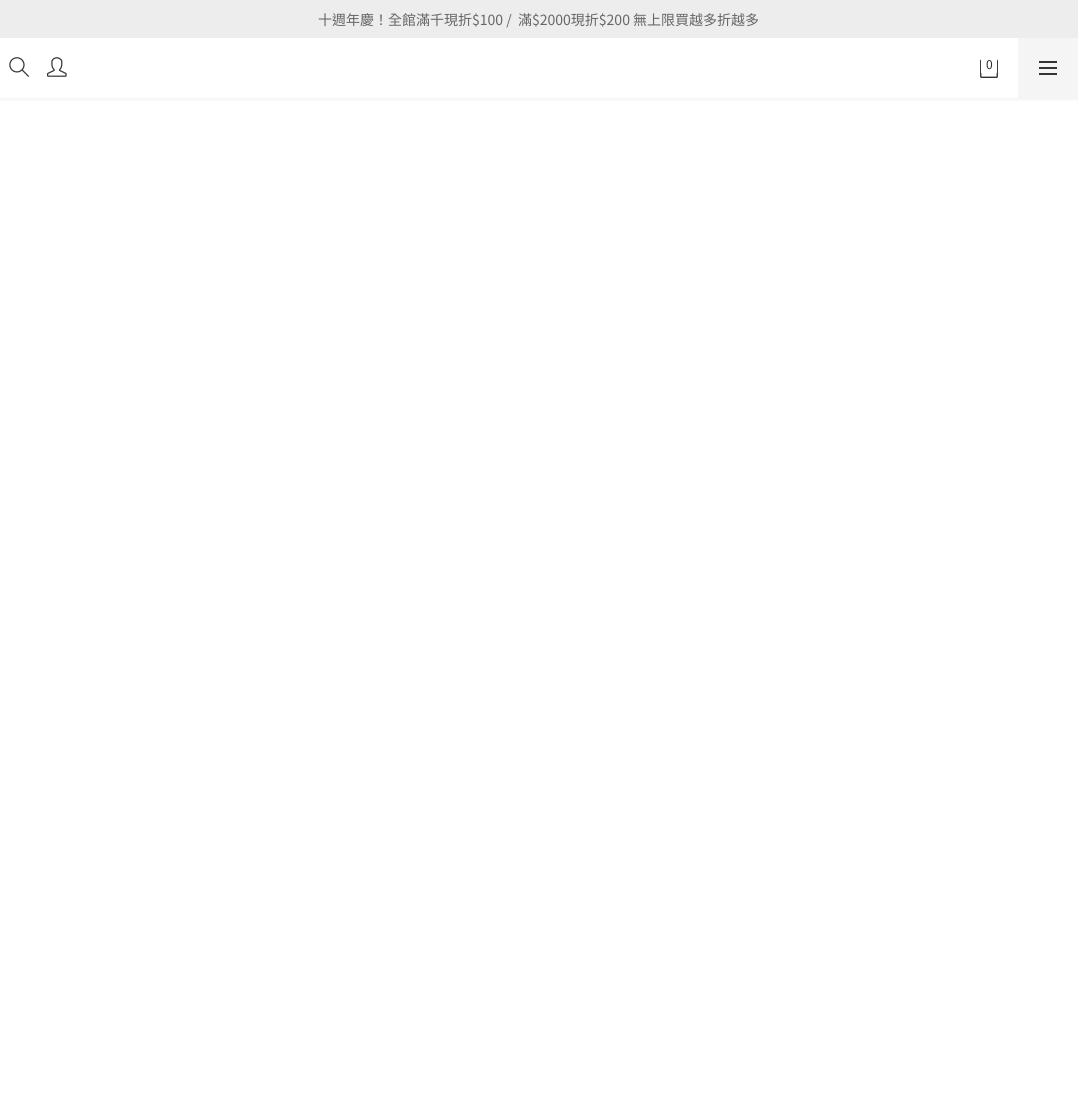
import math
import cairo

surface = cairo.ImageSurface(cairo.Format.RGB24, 1078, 1119)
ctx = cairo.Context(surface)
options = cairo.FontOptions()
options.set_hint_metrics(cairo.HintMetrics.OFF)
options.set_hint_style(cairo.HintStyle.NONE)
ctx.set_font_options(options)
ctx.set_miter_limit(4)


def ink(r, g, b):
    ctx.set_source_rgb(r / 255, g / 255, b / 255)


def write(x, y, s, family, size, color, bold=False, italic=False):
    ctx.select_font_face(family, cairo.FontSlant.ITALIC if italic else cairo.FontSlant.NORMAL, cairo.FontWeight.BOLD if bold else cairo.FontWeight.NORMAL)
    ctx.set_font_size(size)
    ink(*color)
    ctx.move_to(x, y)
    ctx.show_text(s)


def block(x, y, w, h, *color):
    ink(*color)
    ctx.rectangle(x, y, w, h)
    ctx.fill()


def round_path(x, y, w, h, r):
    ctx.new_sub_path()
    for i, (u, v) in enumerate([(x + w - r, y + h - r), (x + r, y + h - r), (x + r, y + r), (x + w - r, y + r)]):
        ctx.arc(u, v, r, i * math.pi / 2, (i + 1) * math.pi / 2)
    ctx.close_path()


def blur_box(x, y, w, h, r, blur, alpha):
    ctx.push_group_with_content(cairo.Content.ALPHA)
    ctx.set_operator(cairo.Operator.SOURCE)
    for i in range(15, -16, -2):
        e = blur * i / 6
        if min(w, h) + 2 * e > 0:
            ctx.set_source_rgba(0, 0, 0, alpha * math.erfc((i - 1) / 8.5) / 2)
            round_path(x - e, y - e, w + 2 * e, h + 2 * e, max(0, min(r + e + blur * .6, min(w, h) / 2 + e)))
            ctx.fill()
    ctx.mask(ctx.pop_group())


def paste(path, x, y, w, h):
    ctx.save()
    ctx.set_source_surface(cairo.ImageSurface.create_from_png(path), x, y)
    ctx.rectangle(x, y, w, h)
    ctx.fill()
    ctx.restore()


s1 = dict(family="Noto Sans TC", size=14, color=(102, 102, 102))
s2 = dict(family="Noto Sans TC", size=12, color=(44, 44, 44))

ink(255, 255, 255)
ctx.paint()
block(0, 0, 1078, 38, 237, 237, 237)
write(318, 25, "十週年慶！全館滿千現折$100 /  滿$2000現折$200 無上限買越多折越多", **s1)
ctx.save()
ctx.rectangle(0, 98, 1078, 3)
ctx.clip()
ink(0, 0, 0)
blur_box(0, 40, 1078, 60, 0, 3, 0.06)
ctx.restore()
paste("pic1.png", 9, 57, 20, 20)
paste("pic2.png", 47, 57, 20, 20)
paste("pic3.png", 980, 59, 18, 19)
block(981, 59, 16, 14, 255, 255, 255)
write(986, 69, "0", **s2)
block(1018, 38, 60, 60, 245, 245, 245)
block(1039, 67, 18, 2, 51, 51, 51)
block(1039, 61, 18, 2, 51, 51, 51)
block(1039, 73, 18, 2, 51, 51, 51)
surface.write_to_png("screenshot.png")
